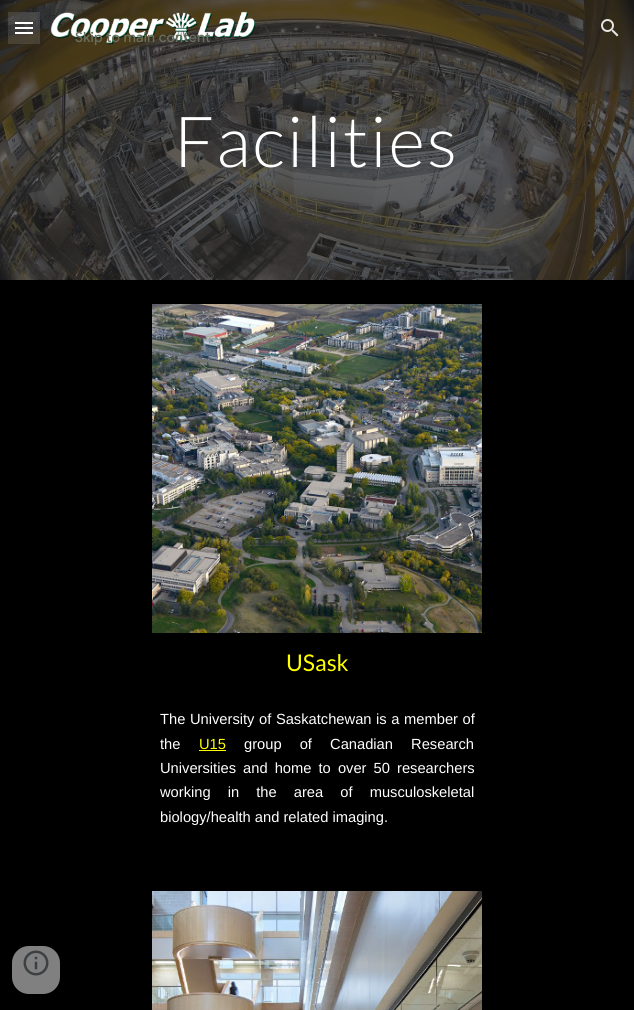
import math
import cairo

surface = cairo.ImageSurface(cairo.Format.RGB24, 634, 1010)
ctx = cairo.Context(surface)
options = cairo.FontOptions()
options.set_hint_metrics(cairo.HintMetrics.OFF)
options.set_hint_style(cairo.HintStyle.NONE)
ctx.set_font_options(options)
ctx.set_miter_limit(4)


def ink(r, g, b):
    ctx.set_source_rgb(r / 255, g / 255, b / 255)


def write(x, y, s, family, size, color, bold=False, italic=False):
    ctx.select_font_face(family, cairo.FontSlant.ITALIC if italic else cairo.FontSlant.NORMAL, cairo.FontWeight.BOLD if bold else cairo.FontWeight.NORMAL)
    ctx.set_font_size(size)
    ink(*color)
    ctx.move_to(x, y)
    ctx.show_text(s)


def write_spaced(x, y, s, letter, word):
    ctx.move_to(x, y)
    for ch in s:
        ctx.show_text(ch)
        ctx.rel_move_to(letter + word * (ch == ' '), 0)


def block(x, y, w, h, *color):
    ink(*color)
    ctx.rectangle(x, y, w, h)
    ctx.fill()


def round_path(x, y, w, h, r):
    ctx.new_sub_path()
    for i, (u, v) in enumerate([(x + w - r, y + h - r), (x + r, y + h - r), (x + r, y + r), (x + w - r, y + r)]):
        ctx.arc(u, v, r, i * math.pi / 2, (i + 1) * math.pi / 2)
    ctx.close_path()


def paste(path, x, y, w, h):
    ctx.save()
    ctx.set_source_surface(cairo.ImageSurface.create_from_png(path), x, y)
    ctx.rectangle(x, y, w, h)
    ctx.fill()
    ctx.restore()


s1 = dict(family="Lato", size=23, color=(255, 255, 0))
s2 = dict(family="Liberation Sans", size=14.7, color=(255, 255, 255))
s3 = dict(family="Liberation Sans", size=14.7, color=(255, 255, 0))

ink(255, 255, 255)
ctx.paint()
paste("pic3.png", 0, 0, 634, 280)
paste("pic1.png", 50, 11, 206, 34)
ctx.select_font_face("Google Sans Medium")
ctx.set_font_size(14)
ink(107, 109, 93)
write_spaced(75, 42, "Skip to main content", 0.1, 0)
block(15, 22, 18, 2, 255, 255, 255)
block(15, 27, 18, 2, 255, 255, 255)
block(15, 32, 18, 2, 255, 255, 255)
ctx.set_source_rgba(1, 1, 1, 0.12)
ctx.rectangle(8, 12, 32, 32)
ctx.fill()
paste("pic2.png", 601, 19, 18, 18)
ctx.select_font_face("Lato Light")
ctx.set_font_size(70.5)
ink(255, 255, 255)
write_spaced(174, 167, "Facilities", 2, 0)
block(0, 280, 634, 730, 0, 0, 0)
paste("pic4.png", 152, 304, 330, 329)
write(286, 671, "USask", **s1)
ctx.select_font_face("Liberation Sans")
ctx.set_font_size(14.7)
ink(255, 255, 255)
write_spaced(160, 724, "The University of Saskatchewan is a member of", 0, 0.5)
write(160, 749, "the", **s2)
write(199, 749, "U15", **s3)
block(199, 750, 27, 1, 255, 255, 0)
ink(255, 255, 255)
write_spaced(244, 749, "group of Canadian Research", 0, 14)
write_spaced(160, 773, "Universities and home to over 50 researchers", 0, 3)
write_spaced(160, 797, "working in the area of musculoskeletal", 0, 13)
write(160, 822, "biology/health and related imaging.", **s2)
paste("pic5.png", 152, 891, 330, 119)
ink(128, 128, 128)
round_path(12, 946, 48, 48, 17)
ctx.fill()
paste("pic6.png", 23, 950, 26, 26)
surface.write_to_png("screenshot.png")
